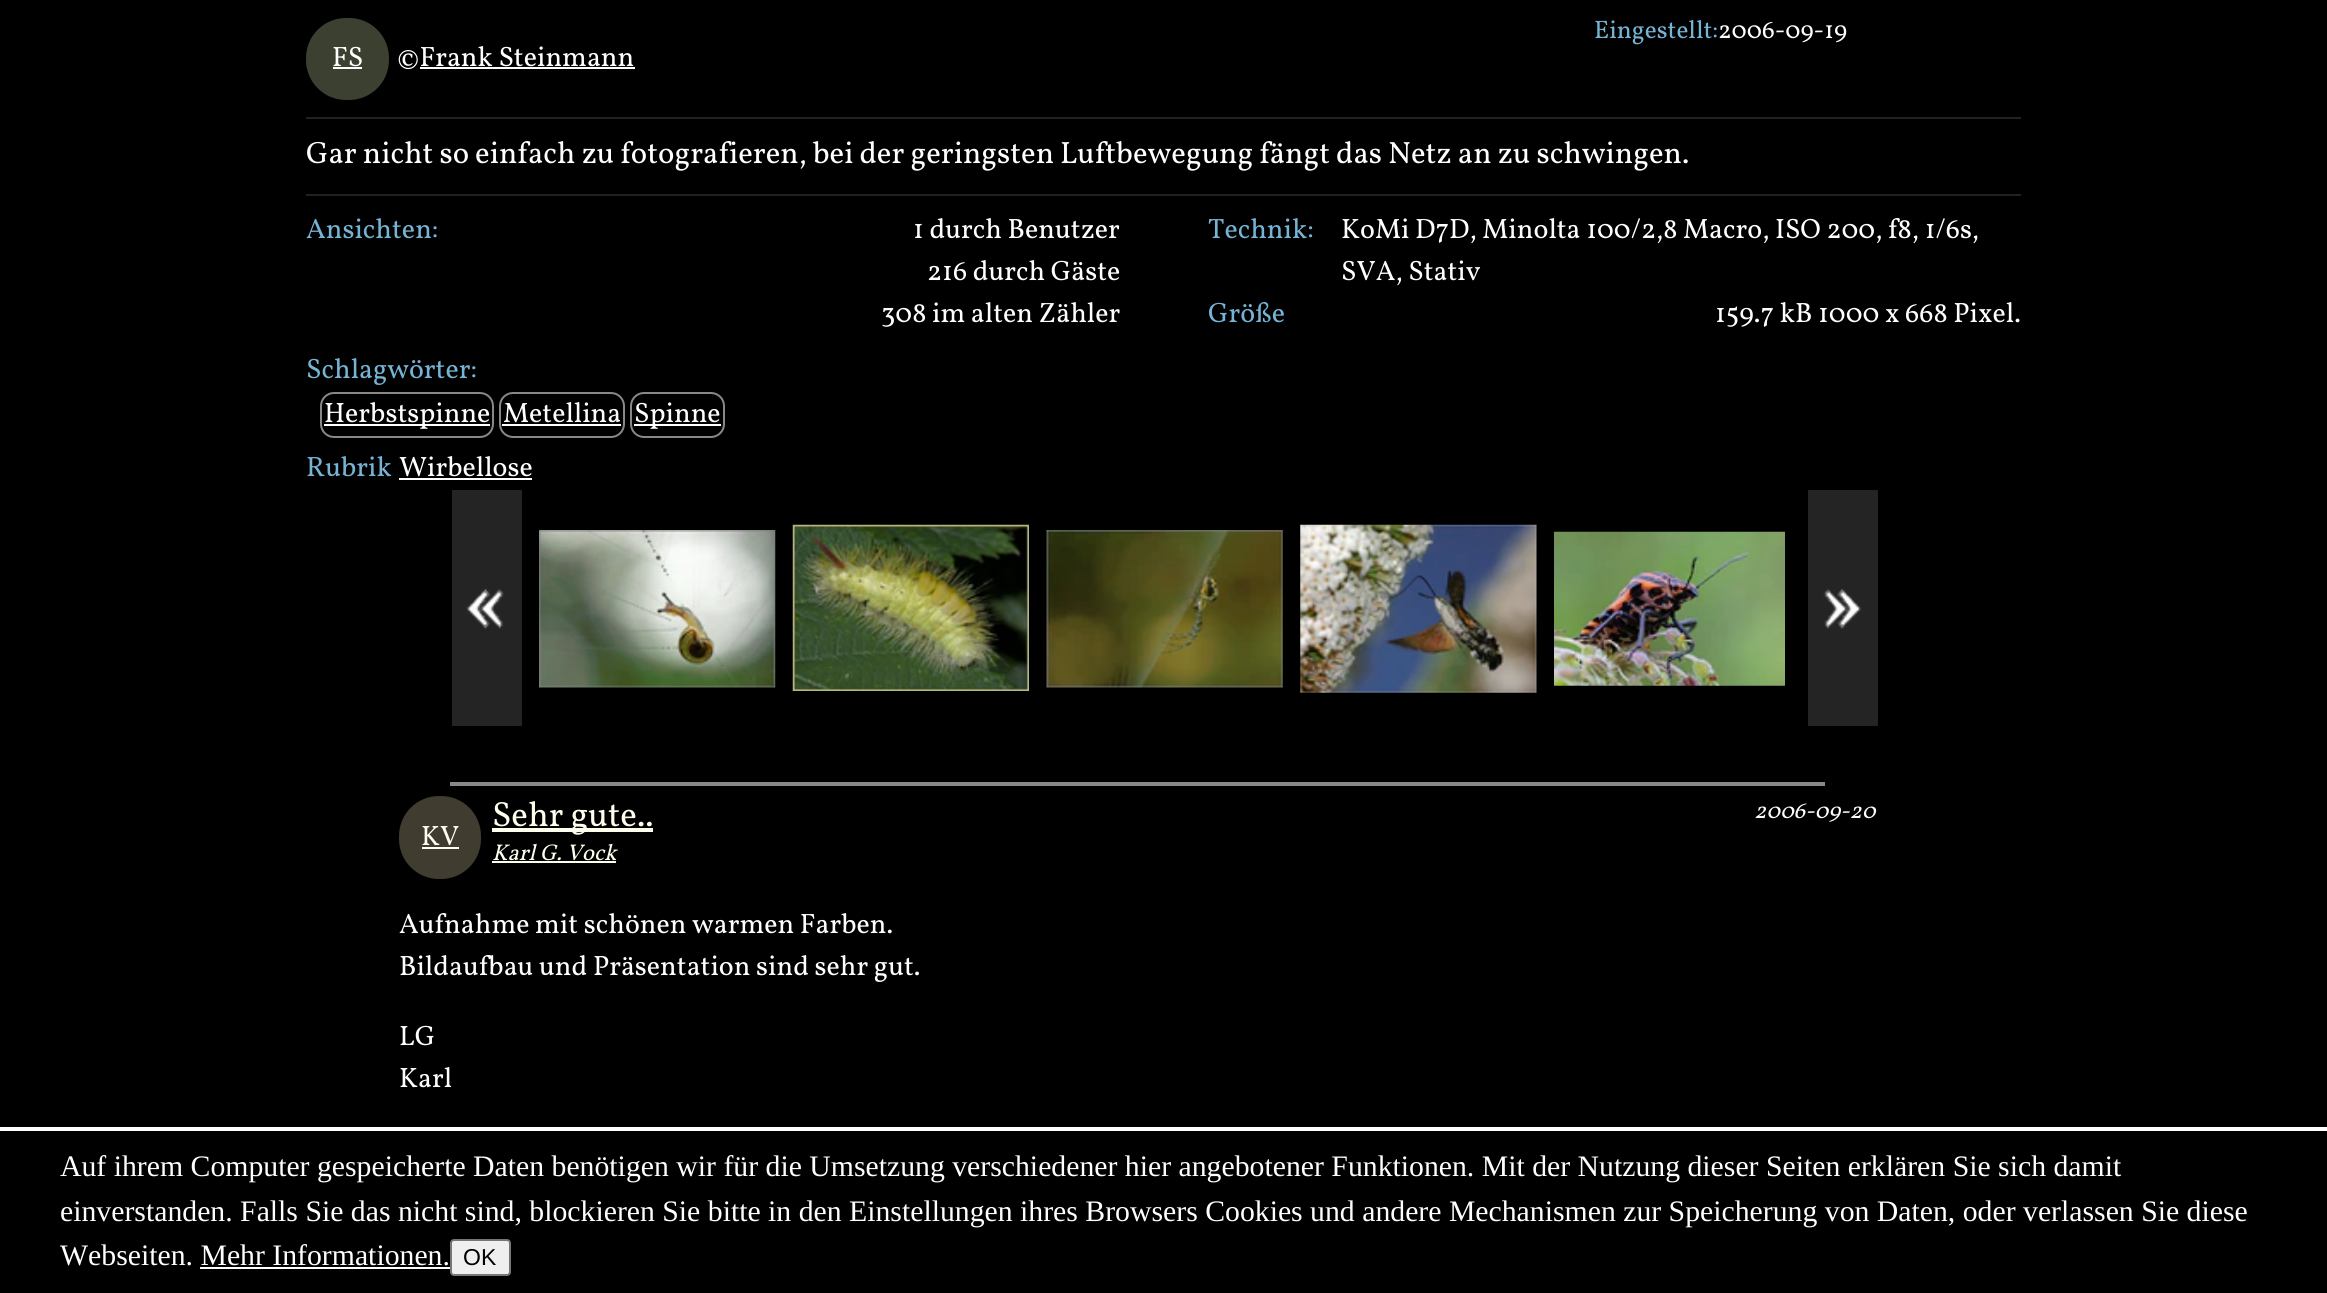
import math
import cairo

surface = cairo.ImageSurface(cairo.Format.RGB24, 2327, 1293)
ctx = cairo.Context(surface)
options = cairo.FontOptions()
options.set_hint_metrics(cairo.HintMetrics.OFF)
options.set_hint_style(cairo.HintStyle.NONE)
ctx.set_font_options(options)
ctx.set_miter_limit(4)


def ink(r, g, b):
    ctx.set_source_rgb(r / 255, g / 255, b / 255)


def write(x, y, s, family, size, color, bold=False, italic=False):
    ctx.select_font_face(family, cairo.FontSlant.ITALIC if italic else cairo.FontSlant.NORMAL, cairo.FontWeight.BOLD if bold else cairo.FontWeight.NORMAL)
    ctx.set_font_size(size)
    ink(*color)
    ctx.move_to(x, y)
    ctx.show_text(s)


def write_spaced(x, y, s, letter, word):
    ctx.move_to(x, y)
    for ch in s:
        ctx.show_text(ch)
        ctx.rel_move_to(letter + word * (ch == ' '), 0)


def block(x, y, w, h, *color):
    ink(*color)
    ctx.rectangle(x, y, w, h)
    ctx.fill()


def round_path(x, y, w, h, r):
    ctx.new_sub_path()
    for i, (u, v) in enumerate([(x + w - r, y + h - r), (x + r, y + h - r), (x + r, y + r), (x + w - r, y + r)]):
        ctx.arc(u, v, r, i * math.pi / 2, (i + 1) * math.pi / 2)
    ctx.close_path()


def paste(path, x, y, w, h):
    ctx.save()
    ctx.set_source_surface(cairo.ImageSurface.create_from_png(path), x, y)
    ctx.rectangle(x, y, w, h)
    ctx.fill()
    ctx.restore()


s1 = dict(family="Vollkorn", size=25.25, color=(118, 179, 212))
s2 = dict(family="Vollkorn", size=25.25, color=(255, 255, 255))
s3 = dict(family="Vollkorn", size=28, color=(255, 255, 255))
s4 = dict(family="Vollkorn", size=28, color=(118, 179, 212))
s5 = dict(family="Vollkorn", size=35, color=(255, 255, 238))
s6 = dict(family="Vollkorn", size=28, color=(255, 255, 238))
s7 = dict(family="Vollkorn", size=22.75, color=(255, 255, 255), italic=True)
s8 = dict(family="Vollkorn", size=22.75, color=(255, 255, 238), italic=True)
s9 = dict(family="Liberation Serif", size=29.75, color=(255, 255, 255))
s10 = dict(family="Liberation Sans", size=23, color=(0, 0, 0))

ink(0, 0, 0)
ctx.paint()
write(1594, 38, "Eingestellt:", **s1)
write(1718, 38, "2006-09-19", **s2)
ink(60, 64, 48)
round_path(306, 18, 83, 82, 40)
ctx.fill()
write(332, 66, "FS", **s3)
block(333, 67, 29, 2, 255, 255, 255)
write(397, 66, "©Frank Steinmann", **s3)
block(420, 67, 215, 2, 255, 255, 255)
block(306, 117, 1715, 2, 34, 34, 34)
block(306, 194, 1715, 2, 34, 34, 34)
ctx.set_font_size(30.8)
ink(255, 255, 255)
write_spaced(306, 163, "Gar nicht so einfach zu fotografieren, bei der geringsten Luftbewegung fängt das Netz an zu schwingen.", 0, -0.1)
write(306, 238, "Ansichten:", **s4)
write(913, 238, "1 durch Benutzer", **s3)
write(927, 280, "216 durch Gäste", **s3)
write(881, 322, "308 im alten Zähler", **s3)
write(1208, 238, "Technik:", **s4)
write(1341, 238, "KoMi D7D, Minolta 100/2,8 Macro, ISO 200, f8, 1/6s,", **s3)
write(1341, 280, "SVA, Stativ", **s3)
write(1208, 322, "Größe", **s4)
write(1715, 322, "159.7 kB 1000 x 668 Pixel.", **s3)
write(306, 378, "Schlagwörter:", **s4)
round_path(321, 393, 172, 44, 13)
ink(136, 136, 136)
ctx.stroke()
block(324, 424, 166, 2, 255, 255, 255)
write(324, 422, "Herbstspinne", **s3)
round_path(500, 393, 124, 44, 13)
ink(136, 136, 136)
ctx.stroke()
write(503, 422, "Metellina", **s3)
block(502, 424, 119, 2, 255, 255, 255)
round_path(631, 393, 93, 44, 13)
ink(136, 136, 136)
ctx.stroke()
block(634, 424, 87, 2, 255, 255, 255)
write(634, 422, "Spinne", **s3)
write(306, 476, "Rubrik", **s4)
write(399, 476, "Wirbellose", **s3)
block(399, 478, 133, 2, 255, 255, 255)
block(452, 490, 70, 236, 36, 36, 36)
paste("pic1.png", 466, 589, 38, 40)
paste("pic2.png", 539, 530, 237, 158)
paste("pic3.png", 792, 524, 237, 167)
paste("pic4.png", 1046, 530, 237, 158)
paste("pic5.png", 1300, 524, 237, 169)
paste("pic6.png", 1554, 531, 231, 155)
block(1808, 490, 70, 236, 36, 36, 36)
paste("pic7.png", 1823, 589, 38, 40)
block(450, 782, 1375, 4, 136, 136, 136)
block(492, 828, 161, 4, 255, 255, 238)
write(492, 826, "Sehr gute..", **s5)
ink(64, 60, 48)
round_path(399, 796, 82, 83, 40)
ctx.fill()
write(421, 845, "KV", **s6)
block(422, 847, 37, 2, 255, 255, 238)
write(1754, 818, "2006-09-20", **s7)
write(492, 860, "Karl G. Vock", **s8)
block(492, 861, 124, 2, 255, 255, 238)
write(399, 933, "Aufnahme mit schönen warmen Farben.", **s3)
write(399, 975, "Bildaufbau und Präsentation sind sehr gut.", **s3)
write(399, 1045, "LG", **s3)
write(399, 1087, "Karl", **s3)
block(0, 1127, 2327, 4, 255, 255, 255)
write(60, 1176, "Auf ihrem Computer gespeicherte Daten benötigen wir für die Umsetzung verschiedener hier angebotener Funktionen. Mit der Nutzung dieser Seiten erklären Sie sich damit", **s9)
write(60, 1221, "einverstanden. Falls Sie das nicht sind, blockieren Sie bitte in den Einstellungen ihres Browsers Cookies und andere Mechanismen zur Speicherung von Daten, oder verlassen Sie diese", **s9)
write(60, 1265, "Webseiten. Mehr Informationen.", **s9)
ink(239, 239, 239)
round_path(451, 1240, 59, 35, 3)
ctx.fill_preserve()
ink(118, 118, 118)
ctx.stroke()
write(463, 1265, "OK", **s10)
block(200, 1267, 250, 2, 255, 255, 255)
surface.write_to_png("screenshot.png")
